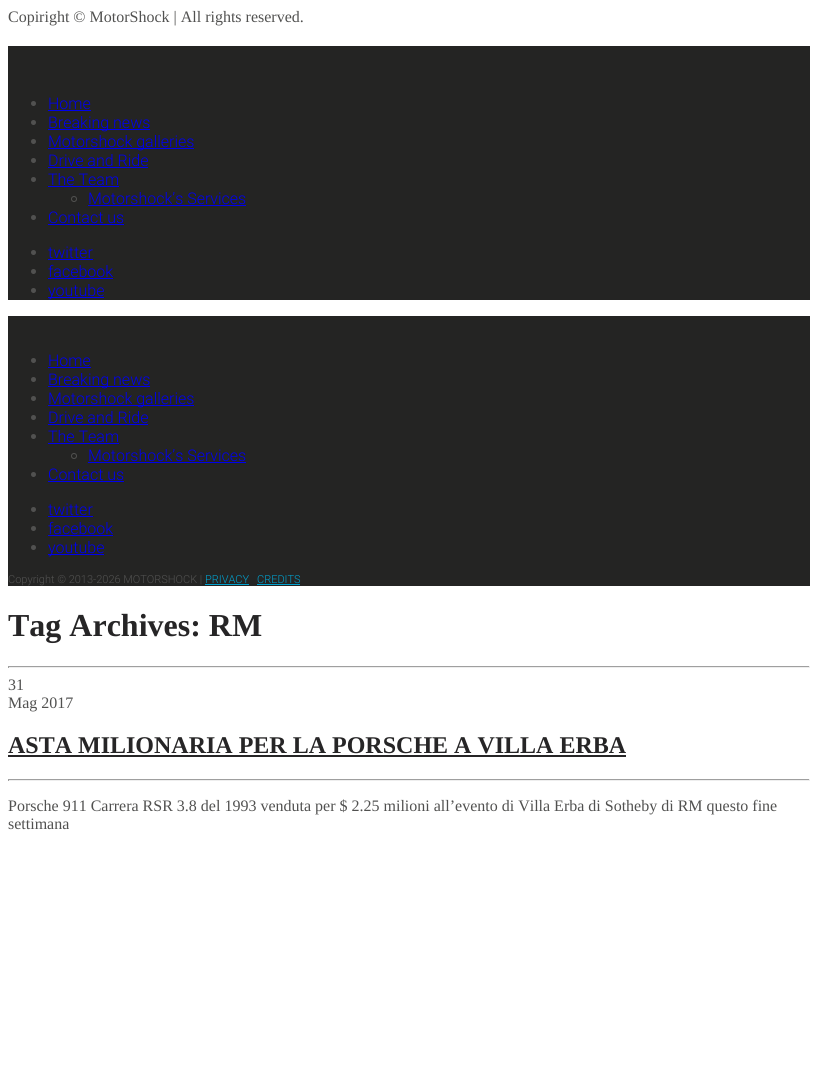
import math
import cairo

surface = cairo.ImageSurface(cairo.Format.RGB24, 818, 1068)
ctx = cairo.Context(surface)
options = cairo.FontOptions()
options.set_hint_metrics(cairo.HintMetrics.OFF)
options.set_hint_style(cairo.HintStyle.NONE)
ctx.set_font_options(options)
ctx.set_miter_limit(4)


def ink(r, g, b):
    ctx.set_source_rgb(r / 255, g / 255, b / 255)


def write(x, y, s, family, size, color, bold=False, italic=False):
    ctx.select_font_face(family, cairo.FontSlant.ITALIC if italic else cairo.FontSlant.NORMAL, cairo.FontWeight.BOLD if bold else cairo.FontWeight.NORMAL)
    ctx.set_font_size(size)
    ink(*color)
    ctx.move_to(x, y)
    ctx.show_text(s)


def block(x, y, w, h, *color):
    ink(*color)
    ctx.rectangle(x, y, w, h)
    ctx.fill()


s1 = dict(family="Liberation Serif", size=16, color=(81, 81, 80))
s2 = dict(family="Roboto Light", size=16, color=(0, 0, 238))
s3 = dict(family="Roboto Light", size=11, color=(81, 81, 80))
s4 = dict(family="Roboto Light", size=11, color=(0, 163, 209))
s5 = dict(family="Liberation Serif", size=32, color=(38, 37, 38), bold=True)
s6 = dict(family="Liberation Serif", size=24, color=(38, 37, 38), bold=True)

ink(255, 255, 255)
ctx.paint()
write(8, 22, "Copiright © MotorShock | All rights reserved.", **s1)
block(8, 46, 802, 254, 36, 36, 35)
ink(81, 81, 80)
ctx.new_path()
ctx.arc(33.5, 103.5, 2.5, 0, 2 * math.pi)
ctx.fill()
write(48, 109, "Home", **s2)
block(48, 110, 43, 1, 0, 0, 238)
ink(81, 81, 80)
ctx.new_path()
ctx.arc(33.5, 122.5, 2.5, 0, 2 * math.pi)
ctx.fill()
block(48, 129, 102, 1, 0, 0, 238)
write(48, 128, "Breaking news", **s2)
ink(81, 81, 80)
ctx.new_path()
ctx.arc(33.5, 141.5, 2.5, 0, 2 * math.pi)
ctx.fill()
block(48, 148, 146, 1, 0, 0, 238)
write(48, 147, "Motorshock galleries", **s2)
ink(81, 81, 80)
ctx.new_path()
ctx.arc(33.5, 160.5, 2.5, 0, 2 * math.pi)
ctx.fill()
write(48, 166, "Drive and Ride", **s2)
block(48, 167, 100, 1, 0, 0, 238)
ink(81, 81, 80)
ctx.new_path()
ctx.arc(33.5, 179.5, 2.5, 0, 2 * math.pi)
ctx.fill()
write(48, 185, "The Team", **s2)
block(48, 186, 71, 1, 0, 0, 238)
ctx.new_path()
ctx.arc(74, 199, 2.5, 0, 2 * math.pi)
ink(81, 81, 80)
ctx.set_line_width(1)
ctx.stroke()
write(88, 204, "Motorshock’s Services", **s2)
block(88, 205, 158, 1, 0, 0, 238)
ink(81, 81, 80)
ctx.new_path()
ctx.arc(33.5, 217.5, 2.5, 0, 2 * math.pi)
ctx.fill()
write(48, 223, "Contact us", **s2)
block(48, 224, 76, 1, 0, 0, 238)
ink(81, 81, 80)
ctx.new_path()
ctx.arc(33.5, 252.5, 2.5, 0, 2 * math.pi)
ctx.fill()
write(48, 258, "twitter", **s2)
block(48, 259, 45, 1, 0, 0, 238)
ink(81, 81, 80)
ctx.new_path()
ctx.arc(33.5, 271.5, 2.5, 0, 2 * math.pi)
ctx.fill()
write(48, 277, "facebook", **s2)
block(48, 278, 65, 1, 0, 0, 238)
ink(81, 81, 80)
ctx.new_path()
ctx.arc(33.5, 290.5, 2.5, 0, 2 * math.pi)
ctx.fill()
block(48, 297, 56, 1, 0, 0, 238)
write(48, 296, "youtube", **s2)
block(8, 316, 802, 270, 36, 36, 35)
ink(81, 81, 80)
ctx.new_path()
ctx.arc(33.5, 360.5, 2.5, 0, 2 * math.pi)
ctx.fill()
write(48, 366, "Home", **s2)
block(48, 367, 43, 1, 0, 0, 238)
ink(81, 81, 80)
ctx.new_path()
ctx.arc(33.5, 379.5, 2.5, 0, 2 * math.pi)
ctx.fill()
block(48, 386, 102, 1, 0, 0, 238)
write(48, 385, "Breaking news", **s2)
ink(81, 81, 80)
ctx.new_path()
ctx.arc(33.5, 398.5, 2.5, 0, 2 * math.pi)
ctx.fill()
block(48, 405, 146, 1, 0, 0, 238)
write(48, 404, "Motorshock galleries", **s2)
ink(81, 81, 80)
ctx.new_path()
ctx.arc(33.5, 417.5, 2.5, 0, 2 * math.pi)
ctx.fill()
write(48, 423, "Drive and Ride", **s2)
block(48, 424, 100, 1, 0, 0, 238)
ink(81, 81, 80)
ctx.new_path()
ctx.arc(33.5, 436.5, 2.5, 0, 2 * math.pi)
ctx.fill()
write(48, 442, "The Team", **s2)
block(48, 443, 71, 1, 0, 0, 238)
ctx.new_path()
ctx.arc(74, 456, 2.5, 0, 2 * math.pi)
ink(81, 81, 80)
ctx.stroke()
write(88, 461, "Motorshock’s Services", **s2)
block(88, 462, 158, 1, 0, 0, 238)
ink(81, 81, 80)
ctx.new_path()
ctx.arc(33.5, 474.5, 2.5, 0, 2 * math.pi)
ctx.fill()
write(48, 480, "Contact us", **s2)
block(48, 481, 76, 1, 0, 0, 238)
ink(81, 81, 80)
ctx.new_path()
ctx.arc(33.5, 509.5, 2.5, 0, 2 * math.pi)
ctx.fill()
write(48, 515, "twitter", **s2)
block(48, 516, 45, 1, 0, 0, 238)
ink(81, 81, 80)
ctx.new_path()
ctx.arc(33.5, 528.5, 2.5, 0, 2 * math.pi)
ctx.fill()
write(48, 534, "facebook", **s2)
block(48, 535, 65, 1, 0, 0, 238)
ink(81, 81, 80)
ctx.new_path()
ctx.arc(33.5, 547.5, 2.5, 0, 2 * math.pi)
ctx.fill()
block(48, 554, 56, 1, 0, 0, 238)
write(48, 553, "youtube", **s2)
write(8, 583, "Copyright © 2013-2026 MOTORSHOCK |", **s3)
write(205, 583, "PRIVACY", **s4)
block(205, 584, 44, 1, 0, 163, 209)
write(257, 583, "CREDITS", **s4)
block(257, 584, 43, 1, 0, 163, 209)
write(8, 636, "Tag Archives: RM", **s5)
block(8, 666, 802, 1, 159, 159, 159)
block(809, 666, 1, 2, 238, 238, 238)
block(8, 667, 802, 1, 238, 238, 238)
block(8, 666, 1, 2, 159, 159, 159)
write(8, 690, "31", **s1)
write(8, 708, "Mag 2017", **s1)
write(8, 753, "ASTA MILIONARIA PER LA PORSCHE A VILLA ERBA", **s6)
block(8, 755, 618, 2, 38, 37, 38)
block(8, 779, 802, 1, 159, 159, 159)
block(809, 779, 1, 2, 238, 238, 238)
block(8, 780, 802, 1, 238, 238, 238)
block(8, 779, 1, 2, 159, 159, 159)
write(8, 811, "Porsche 911 Carrera RSR 3.8 del 1993 venduta per $ 2.25 milioni all’evento di Villa Erba di Sotheby di RM questo fine", **s1)
write(8, 829, "settimana", **s1)
surface.write_to_png("screenshot.png")
